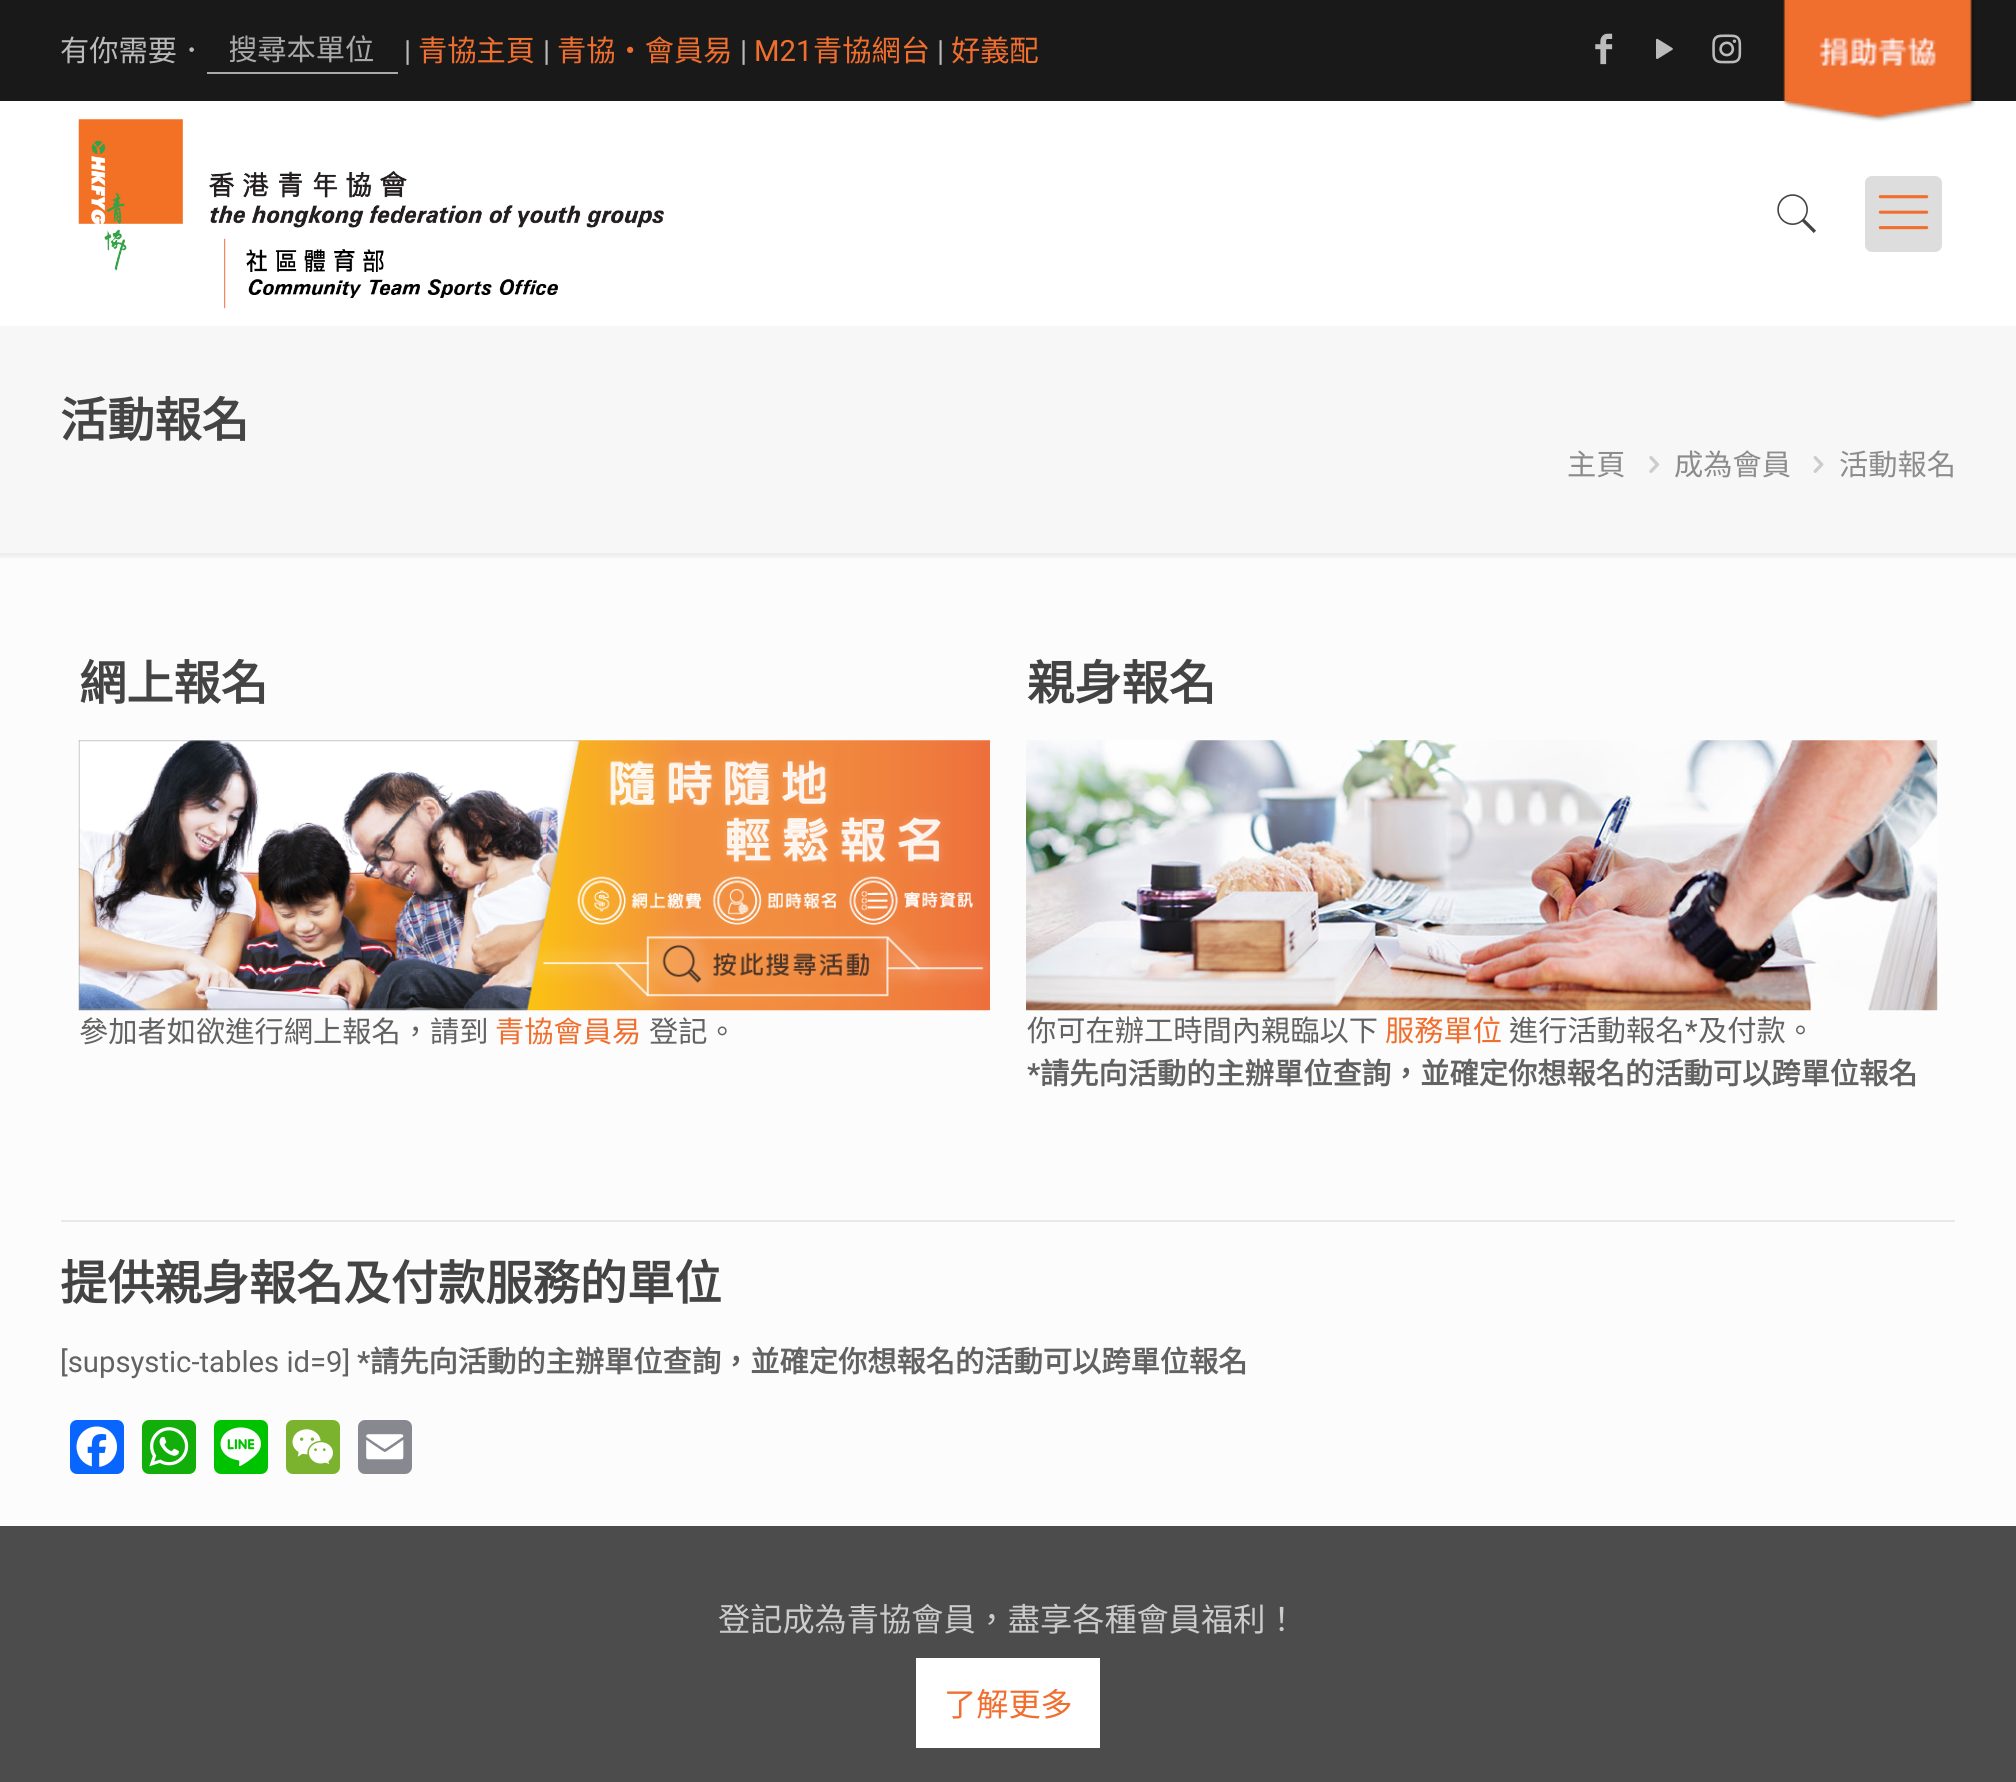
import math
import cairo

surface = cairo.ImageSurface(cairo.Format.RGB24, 2016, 1782)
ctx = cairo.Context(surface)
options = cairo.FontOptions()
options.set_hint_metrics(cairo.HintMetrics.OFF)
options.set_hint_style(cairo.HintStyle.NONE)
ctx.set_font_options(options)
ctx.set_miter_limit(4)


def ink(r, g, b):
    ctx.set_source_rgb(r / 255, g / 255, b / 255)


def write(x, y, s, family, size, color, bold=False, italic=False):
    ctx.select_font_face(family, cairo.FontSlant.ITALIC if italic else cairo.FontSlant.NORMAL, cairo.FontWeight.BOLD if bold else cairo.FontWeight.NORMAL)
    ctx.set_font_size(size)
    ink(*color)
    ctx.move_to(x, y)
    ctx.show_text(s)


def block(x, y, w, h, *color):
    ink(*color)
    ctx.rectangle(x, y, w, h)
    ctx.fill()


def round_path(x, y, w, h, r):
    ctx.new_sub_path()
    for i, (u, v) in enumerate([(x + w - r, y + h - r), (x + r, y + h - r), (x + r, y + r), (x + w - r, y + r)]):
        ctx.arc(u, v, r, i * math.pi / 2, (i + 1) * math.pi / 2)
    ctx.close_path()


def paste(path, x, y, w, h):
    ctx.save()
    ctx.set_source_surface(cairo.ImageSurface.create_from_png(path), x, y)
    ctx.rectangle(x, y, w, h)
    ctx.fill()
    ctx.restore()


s1 = dict(family="Noto Sans CJK HK", size=29.25, color=(187, 187, 187))
s2 = dict(family="Noto Sans CJK HK", size=29.25, color=(169, 169, 169))
s3 = dict(family="Roboto", size=29.25, color=(187, 187, 187))
s4 = dict(family="Noto Sans CJK HK", size=29.25, color=(240, 111, 46))
s5 = dict(family="Roboto", size=29.25, color=(240, 111, 46))
s6 = dict(family="Noto Sans CJK HK", size=47.25, color=(68, 68, 68), bold=True)
s7 = dict(family="Noto Sans CJK HK", size=29.25, color=(140, 140, 140))
s8 = dict(family="Noto Sans CJK HK", size=29.25, color=(98, 98, 98))
s9 = dict(family="Roboto", size=29.25, color=(98, 98, 98))
s10 = dict(family="Roboto", size=29.25, color=(98, 98, 98), bold=True)
s11 = dict(family="Noto Sans CJK HK", size=29.25, color=(98, 98, 98), bold=True)
s12 = dict(family="Noto Sans CJK HK", size=32.2, color=(204, 204, 204))
s13 = dict(family="Noto Sans CJK HK", size=32.2, color=(240, 111, 46))

ink(252, 252, 252)
ctx.paint()
block(0, 0, 2016, 101, 26, 25, 25)
write(60, 61, "有你需要．", **s1)
block(207, 72, 191, 2, 169, 169, 169)
ctx.save()
ctx.rectangle(230, 27, 146, 43)
ctx.clip()
write(228, 60, "搜尋本單位", **s2)
ctx.restore()
write(404, 61, "|", **s3)
write(418, 61, "青協主頁", **s4)
write(543, 61, "|", **s3)
write(557, 61, "青協・會員易", **s4)
write(740, 61, "|", **s3)
write(754, 61, "M21", **s5)
write(813, 61, "青協網台", **s4)
write(937, 61, "|", **s3)
write(951, 61, "好義配", **s4)
paste("pic1.png", 1595, 33, 18, 32)
paste("pic2.png", 1656, 38, 17, 21)
paste("pic3.png", 1712, 34, 30, 30)
block(0, 101, 2016, 225, 255, 255, 255)
paste("pic4.png", 1783, 0, 193, 122)
paste("pic5.png", 78, 119, 586, 190)
ink(221, 221, 221)
round_path(1865, 176, 77, 76, 7)
ctx.fill()
paste("pic6.png", 1878, 195, 51, 35)
paste("pic7.png", 1777, 194, 39, 39)
block(0, 326, 2016, 228, 247, 247, 247)
write(60, 437, "活動報名", **s6)
write(1567, 475, "主頁", **s7)
paste("pic8.png", 1649, 456, 11, 17)
write(1674, 475, "成為會員", **s7)
paste("pic9.png", 1813, 456, 11, 17)
write(1839, 475, "活動報名", **s7)
paste("pic10.png", 0, 553, 2016, 5)
write(79, 700, "網上報名", **s6)
paste("pic11.png", 78, 740, 912, 271)
write(79, 1042, "參加者如欲進行網上報名，請到", **s8)
write(495, 1042, "青協會員易", **s4)
write(649, 1042, "登記。", **s8)
write(1027, 700, "親身報名", **s6)
paste("pic12.png", 1026, 740, 912, 271)
write(1027, 1041, "你可在辦工時間內親臨以下", **s8)
write(1385, 1041, "服務單位", **s4)
write(1509, 1041, "進行活動報名", **s8)
write(1685, 1041, "*", **s9)
write(1698, 1041, "及付款。", **s8)
write(1027, 1084, "*", **s10)
write(1040, 1084, "請先向活動的主辦單位查詢，並確定你想報名的活動可以跨單位報名", **s11)
block(61, 1220, 1894, 2, 232, 232, 232)
write(60, 1300, "提供親身報名及付款服務的單位", **s6)
write(60, 1372, "[supsystic-tables id=9]", **s9)
write(357, 1372, "*", **s10)
write(370, 1372, "請先向活動的主辦單位查詢，並確定你想報名的活動可以跨單位報名", **s11)
ink(8, 102, 255)
round_path(70, 1420, 54, 54, 7)
ctx.fill()
paste("pic13.png", 76, 1426, 41, 41)
ink(18, 175, 10)
round_path(142, 1420, 54, 54, 7)
ctx.fill()
paste("pic14.png", 149, 1427, 40, 40)
ink(0, 195, 0)
round_path(214, 1420, 54, 54, 7)
ctx.fill()
paste("pic15.png", 220, 1427, 41, 39)
ink(123, 179, 46)
round_path(286, 1420, 54, 54, 7)
ctx.fill()
paste("pic16.png", 292, 1429, 41, 36)
ink(136, 137, 144)
round_path(358, 1420, 54, 54, 7)
ctx.fill()
paste("pic17.png", 366, 1434, 38, 26)
block(0, 1526, 2016, 256, 76, 76, 76)
write(718, 1631, "登記成為青協會員，盡享各種會員福利！", **s12)
block(916, 1658, 184, 90, 255, 255, 255)
write(944, 1716, "了解更多", **s13)
surface.write_to_png("screenshot.png")
